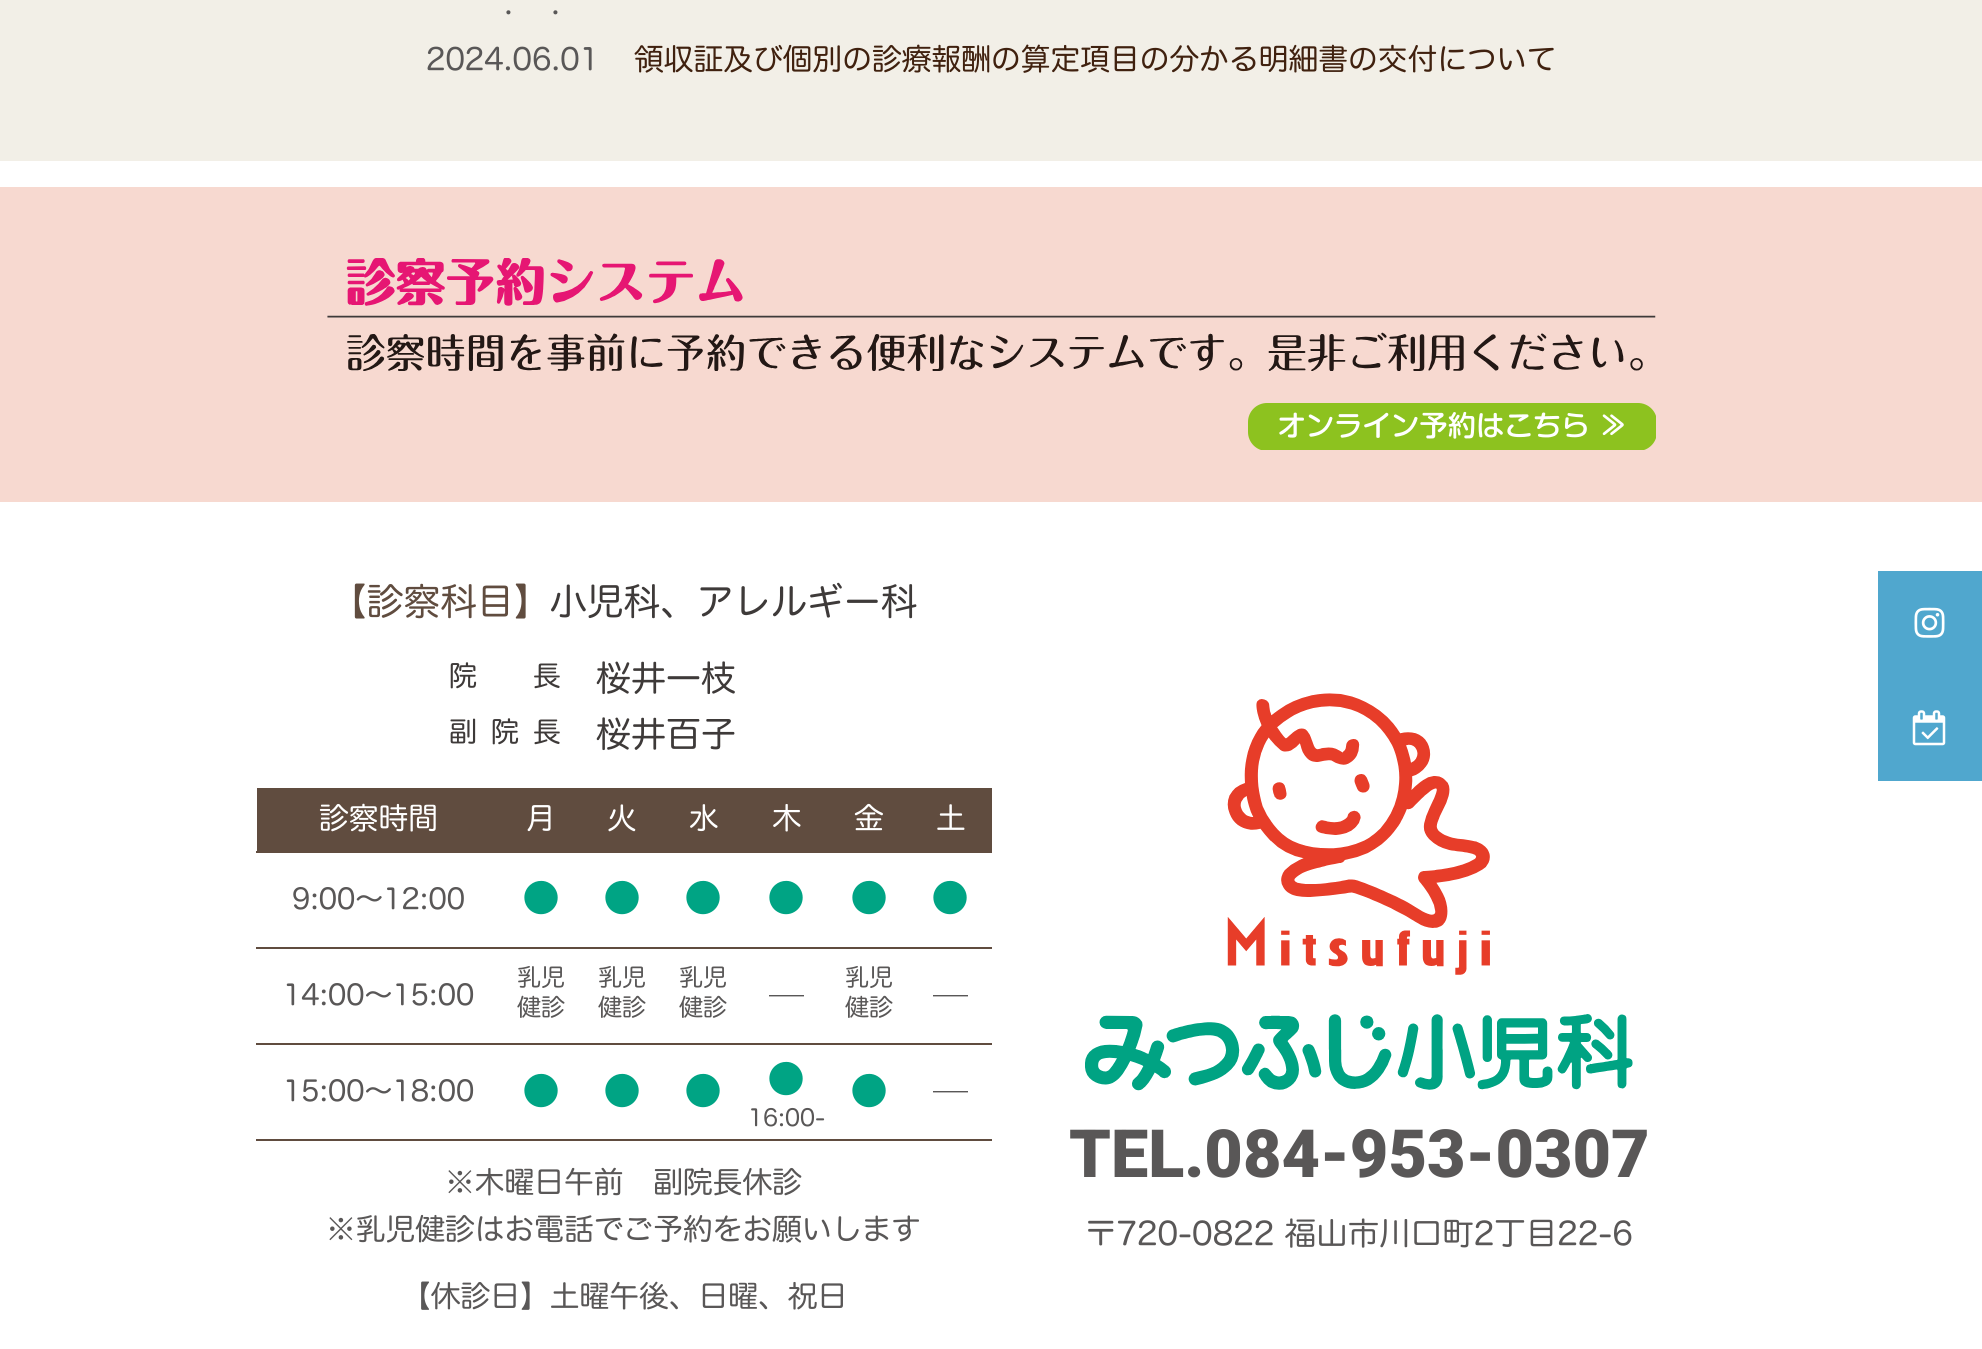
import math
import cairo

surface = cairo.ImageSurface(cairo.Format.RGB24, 1982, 1349)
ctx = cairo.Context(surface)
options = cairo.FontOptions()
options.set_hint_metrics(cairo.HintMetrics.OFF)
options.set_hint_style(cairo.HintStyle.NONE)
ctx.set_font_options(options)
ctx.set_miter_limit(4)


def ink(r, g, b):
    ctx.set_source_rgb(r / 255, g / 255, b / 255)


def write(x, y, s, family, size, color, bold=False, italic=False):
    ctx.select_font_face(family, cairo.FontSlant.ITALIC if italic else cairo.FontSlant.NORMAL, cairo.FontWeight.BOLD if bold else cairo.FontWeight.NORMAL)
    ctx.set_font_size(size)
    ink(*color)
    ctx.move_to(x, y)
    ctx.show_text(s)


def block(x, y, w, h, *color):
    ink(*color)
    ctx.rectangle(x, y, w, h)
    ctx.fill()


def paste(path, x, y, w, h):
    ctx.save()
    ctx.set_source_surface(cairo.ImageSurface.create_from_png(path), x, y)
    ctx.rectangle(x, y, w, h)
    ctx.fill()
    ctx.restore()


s1 = dict(family="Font", size=29.75, color=(89, 87, 87))
s2 = dict(family="Font", size=29.75, color=(64, 33, 15))
s3 = dict(family="Font", size=36.75, color=(96, 76, 63))
s4 = dict(family="Font", size=36.75, color=(62, 58, 57))
s5 = dict(family="Font", size=28, color=(62, 58, 57))
s6 = dict(family="Font", size=35, color=(62, 58, 57))
s7 = dict(family="Font", size=29.75, color=(255, 255, 255))
s8 = dict(family="Font", size=28, color=(89, 87, 87))
s9 = dict(family="Font", size=38, color=(0, 164, 132))
s10 = dict(family="Font", size=24, color=(89, 87, 87))
s11 = dict(family="Font", size=35, color=(89, 87, 87))
s12 = dict(family="Font", size=23, color=(89, 87, 87))
s13 = dict(family="Roboto Black", size=66.5, color=(89, 87, 87))
s14 = dict(family="Font", size=31.5, color=(89, 87, 87))

ink(255, 255, 255)
ctx.paint()
block(0, 0, 1982, 161, 242, 239, 231)
write(504, 14, ".", **s1)
write(551, 14, ".", **s1)
write(426, 70, "2024.06.01", **s1)
write(634, 70, "領収証及び個別の診療報酬の算定項目の分かる明細書の交付について", **s2)
block(0, 187, 1982, 315, 247, 217, 208)
paste("pic1.png", 327, 258, 1329, 113)
paste("pic2.png", 1248, 403, 408, 47)
write(330, 615, "【診察科目】", **s3)
write(550, 615, "小児科、アレルギー科", **s4)
write(449, 686, "院", **s5)
write(533, 686, "長", **s5)
write(596, 691, "桜井一枝", **s6)
write(449, 742, "副", **s5)
write(491, 742, "院", **s5)
write(533, 742, "長", **s5)
write(596, 747, "桜井百子", **s6)
block(257, 788, 735, 63, 96, 76, 63)
write(319, 829, "診察時間", **s7)
write(526, 829, "月", **s7)
write(607, 829, "火", **s7)
write(689, 829, "水", **s7)
write(772, 829, "木", **s7)
write(854, 829, "金", **s7)
block(256, 851, 736, 2, 96, 76, 63)
write(936, 829, "土", **s7)
write(292, 909, "9:00～12:00", **s8)
write(522, 912, "●", **s9)
write(603, 912, "●", **s9)
write(684, 912, "●", **s9)
write(767, 912, "●", **s9)
write(850, 912, "●", **s9)
block(256, 947, 736, 2, 96, 76, 63)
write(931, 912, "●", **s9)
write(283, 1005, "14:00～15:00", **s8)
write(517, 986, "乳児", **s10)
write(517, 1016, "健診", **s10)
write(598, 986, "乳児", **s10)
write(598, 1016, "健診", **s10)
write(679, 986, "乳児", **s10)
write(679, 1016, "健診", **s10)
write(769, 1009, "─", **s11)
write(845, 986, "乳児", **s10)
write(845, 1016, "健診", **s10)
block(256, 1043, 736, 2, 96, 76, 63)
write(933, 1009, "─", **s11)
write(283, 1101, "15:00～18:00", **s8)
write(522, 1105, "●", **s9)
write(603, 1105, "●", **s9)
write(684, 1105, "●", **s9)
write(767, 1093, "●", **s9)
write(748, 1126, "16:00-", **s12)
write(850, 1105, "●", **s9)
block(256, 1139, 736, 2, 96, 76, 63)
write(933, 1105, "─", **s11)
write(445, 1193, "※木曜日午前　副院長休診", **s1)
write(326, 1240, "※乳児健診はお電話でご予約をお願いします", **s1)
write(401, 1307, "【休診日】土曜午後、日曜、祝日", **s1)
paste("pic3.png", 1085, 693, 548, 398)
write(1069, 1177, "TEL.084-953-0307", **s13)
write(1085, 1245, "〒720-0822 福山市川口町2丁目22-6", **s14)
block(1878, 571, 104, 210, 80, 167, 206)
paste("pic4.png", 1914, 607, 31, 31)
paste("pic5.png", 1912, 710, 34, 36)
surface.write_to_png("screenshot.png")
